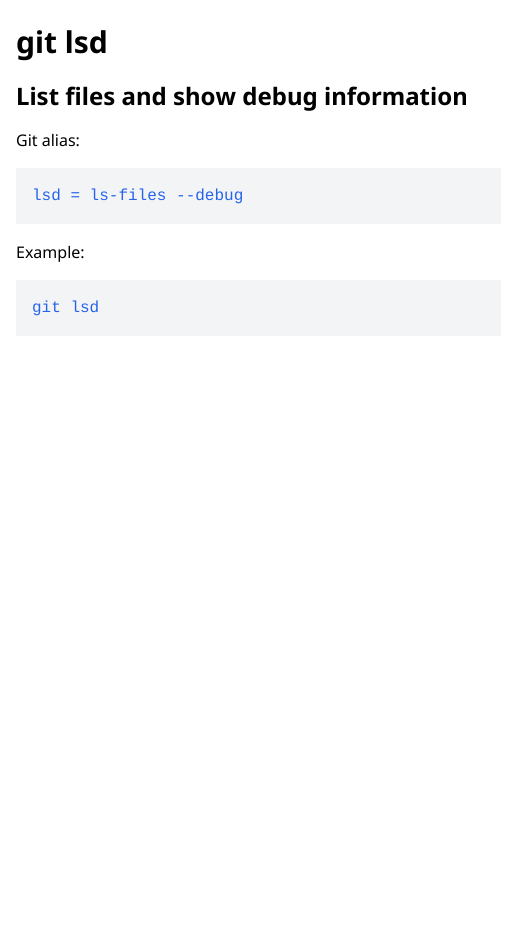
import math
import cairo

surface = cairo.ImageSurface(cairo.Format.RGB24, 517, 939)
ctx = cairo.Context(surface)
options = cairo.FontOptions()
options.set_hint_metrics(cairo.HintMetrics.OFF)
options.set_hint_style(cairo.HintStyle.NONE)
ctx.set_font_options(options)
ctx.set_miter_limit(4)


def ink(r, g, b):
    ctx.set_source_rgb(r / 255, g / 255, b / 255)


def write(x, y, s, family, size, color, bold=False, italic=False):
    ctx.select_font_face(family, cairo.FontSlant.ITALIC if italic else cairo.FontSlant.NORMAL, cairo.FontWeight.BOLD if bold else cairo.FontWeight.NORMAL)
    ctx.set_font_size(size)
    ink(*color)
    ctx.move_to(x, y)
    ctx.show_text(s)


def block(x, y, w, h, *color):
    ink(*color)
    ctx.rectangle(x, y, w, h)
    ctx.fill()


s1 = dict(family="Noto Sans", size=30, color=(0, 0, 0), bold=True)
s2 = dict(family="Noto Sans", size=24, color=(0, 0, 0), bold=True)
s3 = dict(family="Noto Sans", size=16, color=(0, 0, 0))
s4 = dict(family="Liberation Mono", size=16, color=(37, 99, 235))

ink(255, 255, 255)
ctx.paint()
write(16, 53, "git lsd", **s1)
write(16, 105, "List files and show debug information", **s2)
write(16, 146, "Git alias:", **s3)
block(16, 168, 485, 56, 243, 244, 246)
write(32, 200, "lsd = ls-files --debug", **s4)
write(16, 258, "Example:", **s3)
block(16, 280, 485, 56, 243, 244, 246)
write(32, 312, "git lsd", **s4)
surface.write_to_png("screenshot.png")
